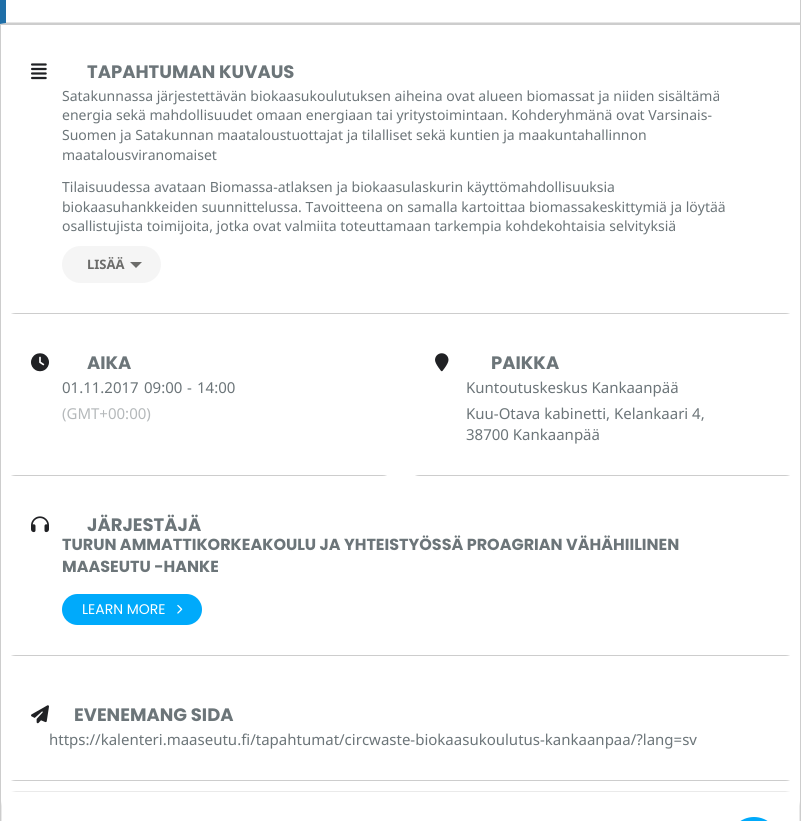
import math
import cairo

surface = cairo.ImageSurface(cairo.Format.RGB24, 801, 821)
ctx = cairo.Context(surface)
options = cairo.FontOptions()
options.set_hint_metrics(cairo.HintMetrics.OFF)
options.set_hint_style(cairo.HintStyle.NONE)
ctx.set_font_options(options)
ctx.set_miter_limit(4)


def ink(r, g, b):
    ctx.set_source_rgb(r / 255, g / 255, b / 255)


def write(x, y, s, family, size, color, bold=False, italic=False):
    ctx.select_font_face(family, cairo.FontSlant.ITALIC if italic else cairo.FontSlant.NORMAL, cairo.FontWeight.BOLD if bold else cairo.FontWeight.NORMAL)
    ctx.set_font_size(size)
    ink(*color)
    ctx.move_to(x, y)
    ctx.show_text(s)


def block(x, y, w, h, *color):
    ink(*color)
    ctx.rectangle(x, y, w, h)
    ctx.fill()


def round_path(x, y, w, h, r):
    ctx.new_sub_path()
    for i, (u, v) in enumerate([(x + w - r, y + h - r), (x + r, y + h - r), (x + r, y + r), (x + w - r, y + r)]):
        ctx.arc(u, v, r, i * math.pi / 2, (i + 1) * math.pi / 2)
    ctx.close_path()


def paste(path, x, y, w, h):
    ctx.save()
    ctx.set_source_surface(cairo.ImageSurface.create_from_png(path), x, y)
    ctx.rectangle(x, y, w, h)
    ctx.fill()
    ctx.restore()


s1 = dict(family="Poppins", size=18, color=(108, 117, 121), bold=True)
s2 = dict(family="Noto Sans", size=14, color=(108, 117, 121))
s3 = dict(family="Noto Sans", size=13, color=(108, 108, 106), bold=True)
s4 = dict(family="Noto Sans", size=15, color=(108, 117, 121))
s5 = dict(family="Noto Sans", size=15, color=(181, 185, 187))
s6 = dict(family="Poppins", size=16, color=(108, 117, 121), bold=True)
s7 = dict(family="Poppins", size=14, color=(255, 255, 255))

ink(255, 255, 255)
ctx.paint()
block(800, 0, 1, 24, 205, 205, 205)
ctx.new_path()
ctx.move_to(801, 24)
ctx.line_to(0, 24)
ctx.line_to(6, 23)
ctx.line_to(800, 23)
ctx.close_path()
ctx.fill()
ink(31, 111, 168)
ctx.new_path()
ctx.move_to(0, 24)
ctx.line_to(0, -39)
ctx.line_to(6, -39)
ctx.line_to(6, 23)
ctx.close_path()
ctx.fill()
block(6, 22, 794, 1, 229, 229, 229)
ctx.rectangle(0.5, 24.5, 800, 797)
ink(205, 205, 205)
ctx.set_line_width(1)
ctx.stroke()
ctx.save()
round_path(1, 33, 799, 281, 15)
ctx.clip()
block(11, 313, 779, 1, 205, 205, 205)
ctx.restore()
paste("pic1.png", 31, 63, 16, 17)
write(87, 78, "TAPAHTUMAN KUVAUS", **s1)
write(62, 101, "Satakunnassa järjestettävän biokaasukoulutuksen aiheina ovat alueen biomassat ja niiden sisältämä", **s2)
write(62, 120, "energia sekä mahdollisuudet omaan energiaan tai yritystoimintaan. Kohderyhmänä ovat Varsinais-", **s2)
write(62, 140, "Suomen ja Satakunnan maataloustuottajat ja tilalliset sekä kuntien ja maakuntahallinnon", **s2)
write(62, 160, "maatalousviranomaiset", **s2)
write(62, 192, "Tilaisuudessa avataan Biomassa-atlaksen ja biokaasulaskurin käyttömahdollisuuksia", **s2)
write(62, 212, "biokaasuhankkeiden suunnittelussa. Tavoitteena on samalla kartoittaa biomassakeskittymiä ja löytää", **s2)
write(62, 231, "osallistujista toimijoita, jotka ovat valmiita toteuttamaan tarkempia kohdekohtaisia selvityksiä", **s2)
ink(245, 245, 245)
round_path(62, 246, 99, 37, 18.5)
ctx.fill()
write(87, 269, "LISÄÄ", **s3)
ctx.new_path()
ctx.move_to(130, 262)
ctx.line_to(142, 262)
ctx.line_to(136, 268)
ctx.close_path()
ctx.fill()
ctx.save()
round_path(1, 324, 396, 152, 15)
ctx.clip()
block(11, 475, 376, 1, 205, 205, 205)
ctx.restore()
paste("pic2.png", 31, 353, 18, 19)
write(87, 369, "AIKA", **s1)
write(62, 393, "01.11.2017", **s4)
write(144, 393, "09:00", **s4)
write(187, 393, "-", **s4)
write(197, 393, "14:00", **s4)
write(62, 419, "(GMT+00:00)", **s5)
ctx.save()
round_path(405, 324, 395, 152, 15)
ctx.clip()
block(415, 475, 375, 1, 205, 205, 205)
ctx.restore()
paste("pic3.png", 435, 353, 14, 19)
write(491, 369, "PAIKKA", **s1)
write(466, 393, "Kuntoutuskeskus Kankaanpää", **s4)
write(466, 419, "Kuu-Otava kabinetti, Kelankaari 4,", **s4)
write(466, 440, "38700 Kankaanpää", **s4)
ctx.save()
round_path(1, 486, 799, 170, 15)
ctx.clip()
block(11, 655, 779, 1, 205, 205, 205)
ctx.restore()
paste("pic4.png", 31, 516, 18, 17)
write(87, 531, "JÄRJESTÄJÄ", **s1)
write(62, 550, "TURUN AMMATTIKORKEAKOULU JA YHTEISTYÖSSÄ PROAGRIAN VÄHÄHIILINEN", **s6)
write(62, 572, "MAASEUTU -HANKE", **s6)
ink(0, 170, 251)
round_path(62, 594, 140, 31, 15.5)
ctx.fill()
write(82, 614, "LEARN MORE", **s7)
paste("pic5.png", 177, 604, 6, 10)
ctx.save()
round_path(1, 676, 799, 105, 15)
ctx.clip()
block(11, 780, 779, 1, 205, 205, 205)
ctx.restore()
paste("pic6.png", 31, 705, 18, 19)
write(74, 721, "EVENEMANG SIDA", **s1)
write(49, 745, "https://kalenteri.maaseutu.fi/tapahtumat/circwaste-biokaasukoulutus-kankaanpaa/?lang=sv", **s4)
ink(234, 234, 234)
ctx.set_fill_rule(cairo.FillRule.EVEN_ODD)
ctx.new_path()
ctx.move_to(1, 806)
ctx.line_to(1, 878)
ctx.line_to(2, 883)
ctx.line_to(2, 801)
ctx.close_path()
ctx.move_to(16, 791)
ctx.line_to(11, 792)
ctx.line_to(790, 792)
ctx.line_to(785, 791)
ctx.close_path()
ctx.move_to(800, 806)
ctx.line_to(799, 801)
ctx.line_to(799, 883)
ctx.line_to(800, 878)
ctx.close_path()
ctx.move_to(785, 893)
ctx.line_to(790, 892)
ctx.line_to(11, 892)
ctx.line_to(16, 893)
ctx.close_path()
ctx.fill()
ink(0, 170, 251)
round_path(729, 817, 50, 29, 25)
ctx.fill()
surface.write_to_png("screenshot.png")
